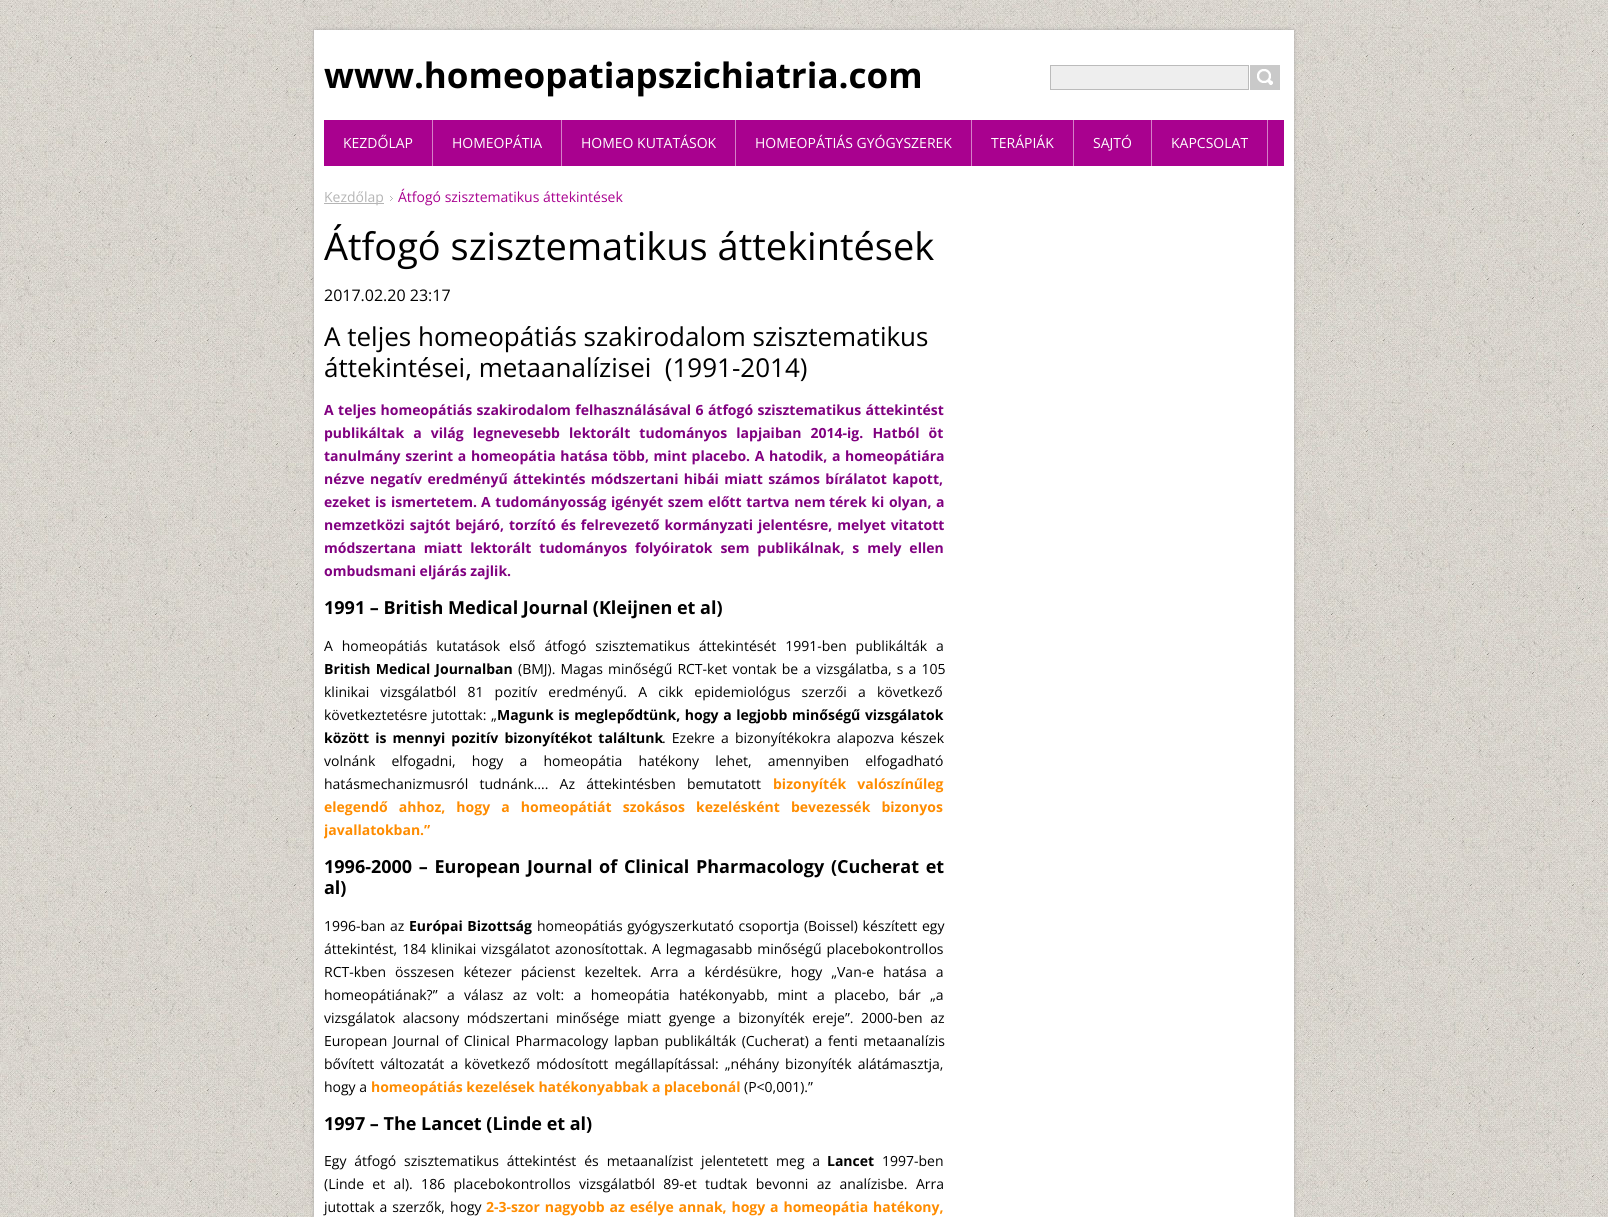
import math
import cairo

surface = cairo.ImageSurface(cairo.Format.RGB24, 1608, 1217)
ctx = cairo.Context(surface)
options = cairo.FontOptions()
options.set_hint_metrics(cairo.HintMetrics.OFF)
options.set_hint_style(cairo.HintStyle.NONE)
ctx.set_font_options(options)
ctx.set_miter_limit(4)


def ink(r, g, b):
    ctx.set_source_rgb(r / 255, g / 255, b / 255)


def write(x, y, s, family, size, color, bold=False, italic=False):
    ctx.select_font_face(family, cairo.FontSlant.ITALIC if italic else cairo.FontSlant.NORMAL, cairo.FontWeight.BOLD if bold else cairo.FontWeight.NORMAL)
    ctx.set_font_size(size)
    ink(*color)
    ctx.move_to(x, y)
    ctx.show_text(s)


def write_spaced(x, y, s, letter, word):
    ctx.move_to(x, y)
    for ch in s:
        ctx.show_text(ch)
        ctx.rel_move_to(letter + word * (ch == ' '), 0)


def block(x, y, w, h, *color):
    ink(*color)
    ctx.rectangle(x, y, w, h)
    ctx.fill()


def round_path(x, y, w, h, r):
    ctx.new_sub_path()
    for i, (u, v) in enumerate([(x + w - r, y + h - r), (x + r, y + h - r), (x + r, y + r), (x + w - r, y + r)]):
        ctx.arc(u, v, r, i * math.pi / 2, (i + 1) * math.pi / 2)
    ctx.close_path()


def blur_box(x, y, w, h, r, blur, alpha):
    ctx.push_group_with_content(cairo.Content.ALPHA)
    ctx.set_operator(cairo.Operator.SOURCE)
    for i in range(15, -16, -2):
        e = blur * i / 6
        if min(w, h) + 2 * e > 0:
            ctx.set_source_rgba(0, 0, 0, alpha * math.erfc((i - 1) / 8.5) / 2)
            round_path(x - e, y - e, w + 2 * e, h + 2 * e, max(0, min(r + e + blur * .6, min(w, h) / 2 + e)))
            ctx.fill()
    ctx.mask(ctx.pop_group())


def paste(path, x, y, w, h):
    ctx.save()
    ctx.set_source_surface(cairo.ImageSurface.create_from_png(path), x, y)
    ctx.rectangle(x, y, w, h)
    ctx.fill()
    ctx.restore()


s1 = dict(family="Open Sans", size=35, color=(0, 0, 0), bold=True)
s2 = dict(family="Open Sans", size=14, color=(255, 255, 255))
s3 = dict(family="Open Sans", size=14, color=(181, 181, 181))
s4 = dict(family="Open Sans", size=14, color=(169, 1, 143))
s5 = dict(family="Open Sans", size=38, color=(0, 0, 0))
s6 = dict(family="Open Sans", size=16, color=(0, 0, 0))
s7 = dict(family="Open Sans", size=26, color=(0, 0, 0))
s8 = dict(family="Open Sans", size=14, color=(128, 0, 128), bold=True)
s9 = dict(family="Open Sans", size=18, color=(0, 0, 0), bold=True)
s10 = dict(family="Open Sans", size=14, color=(255, 140, 0), bold=True)
s11 = dict(family="Open Sans", size=14, color=(0, 0, 0))
s12 = dict(family="Open Sans", size=14, color=(0, 0, 0), bold=True)

ink(255, 255, 255)
ctx.paint()
paste("pic1.png", 0, 0, 1608, 1217)
ink(152, 152, 152)
blur_box(314, 30, 980, 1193, 0, 2, 0.75)
block(314, 30, 980, 1187, 255, 255, 255)
write(324, 88, "www.homeopatiapszichiatria.com", **s1)
ink(238, 238, 238)
ctx.rectangle(1050.5, 65.5, 198, 24)
ctx.fill_preserve()
ink(187, 187, 187)
ctx.set_line_width(1)
ctx.stroke()
block(1250, 65, 30, 25, 201, 201, 201)
paste("pic2.png", 1257, 69, 16, 16)
block(324, 120, 960, 46, 169, 1, 143)
block(432, 120, 1, 46, 212, 128, 199)
write(343, 148, "KEZDŐLAP", **s2)
block(561, 120, 1, 46, 212, 128, 199)
write(452, 148, "HOMEOPÁTIA", **s2)
block(735, 120, 1, 46, 212, 128, 199)
write(581, 148, "HOMEO KUTATÁSOK", **s2)
block(971, 120, 1, 46, 212, 128, 199)
write(755, 148, "HOMEOPÁTIÁS GYÓGYSZEREK", **s2)
block(1073, 120, 1, 46, 212, 128, 199)
write(991, 148, "TERÁPIÁK", **s2)
block(1151, 120, 1, 46, 212, 128, 199)
write(1093, 148, "SAJTÓ", **s2)
block(1267, 120, 1, 46, 212, 128, 199)
write(1171, 148, "KAPCSOLAT", **s2)
block(324, 203, 60, 1, 181, 181, 181)
write(324, 202, "Kezdőlap", **s3)
paste("pic3.png", 390, 196, 3, 5)
write(398, 202, "Átfogó szisztematikus áttekintések", **s4)
write(324, 260, "Átfogó szisztematikus áttekintések", **s5)
write(324, 301, "2017.02.20 23:17", **s6)
write(324, 346, "A teljes homeopátiás szakirodalom szisztematikus", **s7)
write(324, 377, "áttekintései, metaanalízisei  (1991-2014)", **s7)
ctx.select_font_face("Open Sans", cairo.FontSlant.NORMAL, cairo.FontWeight.BOLD)
ctx.set_font_size(14)
ink(128, 0, 128)
write_spaced(324, 415, "A teljes homeopátiás szakirodalom felhasználásával 6 átfogó szisztematikus áttekintést", 0, 0.75)
write_spaced(324, 438, "publikáltak a világ legnevesebb lektorált tudományos lapjaiban 2014-ig. Hatból öt", 0, 5.5)
write_spaced(324, 461, "tanulmány szerint a homeopátia hatása több, mint placebo. A hatodik, a homeopátiára", 0, 1)
write_spaced(324, 484, "nézve negatív eredményű áttekintés módszertani hibái miatt számos bírálatot kapott,", 0, 1.75)
write_spaced(324, 507, "ezeket is ismertetem.", 0, 1)
write_spaced(481, 507, "A tudományosság igényét szem előtt tartva nem", 0, 1)
write_spaced(829, 507, "térek ki olyan, a", 0, 1)
write_spaced(324, 530, "nemzetközi sajtót bejáró, torzító és felrevezető kormányzati jelentésre, melyet vitatott", 0, 1.25)
write_spaced(324, 553, "módszertana miatt lektorált tudományos folyóiratok sem publikálnak, s mely ellen", 0, 4.25)
write(324, 576, "ombudsmani eljárás zajlik.", **s8)
write(324, 614, "1991 – British Medical Journal (Kleijnen et al)", **s9)
ctx.select_font_face("Open Sans")
ctx.set_font_size(14)
write_spaced(324, 651, "A homeopátiás kutatások első átfogó szisztematikus áttekintését 1991-ben publikálták a", 0, 5.25)
ctx.select_font_face("Open Sans", cairo.FontSlant.NORMAL, cairo.FontWeight.BOLD)
write_spaced(324, 674, "British Medical Journalban", 0, 1.5)
ctx.select_font_face("Open Sans")
write_spaced(518, 674, "(BMJ). Magas minőségű RCT-ket vontak be a vizsgálatba, s a 105", 0, 1.5)
write_spaced(324, 697, "klinikai vizsgálatból 81 pozitív eredményű. A cikk epidemiológus szerzői a következő", 0, 7.5)
write_spaced(324, 720, "következtetésre jutottak: „", 0, 1)
ctx.select_font_face("Open Sans", cairo.FontSlant.NORMAL, cairo.FontWeight.BOLD)
write_spaced(497, 720, "Magunk is meglepődtünk, hogy a legjobb minőségű vizsgálatok", 0, 1)
write_spaced(324, 743, "között is mennyi pozitív bizonyítékot találtunk", 0, 2.5)
ctx.select_font_face("Open Sans")
write_spaced(662, 743, ". Ezekre a bizonyítékokra alapozva készek", 0, 2.5)
write_spaced(324, 766, "volnánk elfogadni, hogy a homeopátia hatékony lehet, amennyiben elfogadható", 0, 12.5)
write_spaced(324, 789, "hatásmechanizmusról tudnánk…. Az áttekintésben bemutatott", 0, 7.5)
ctx.select_font_face("Open Sans", cairo.FontSlant.NORMAL, cairo.FontWeight.BOLD)
ink(255, 140, 0)
write_spaced(773, 789, "bizonyíték valószínűleg", 0, 7.5)
write_spaced(324, 812, "elegendő ahhoz, hogy a homeopátiát szokásos kezelésként bevezessék bizonyos", 0, 7.5)
ctx.save()
ctx.rectangle(324, 223, 620, 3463)
ctx.clip()
write(324, 835, "javallatokban.”", **s10)
ctx.restore()
ctx.set_font_size(18)
ink(0, 0, 0)
write_spaced(324, 873, "1996-2000 – European Journal of Clinical Pharmacology", 0, 2)
write_spaced(831, 873, "(Cucherat et", 0, 2)
write(324, 894, "al)", **s9)
ctx.select_font_face("Open Sans")
ctx.set_font_size(14)
write_spaced(324, 931, "1996-ban az", 0, 1)
ctx.select_font_face("Open Sans", cairo.FontSlant.NORMAL, cairo.FontWeight.BOLD)
write_spaced(409, 931, "Európai Bizottság", 0, 1)
ctx.select_font_face("Open Sans")
write_spaced(537, 931, "homeopátiás gyógyszerkutató csoportja (Boissel) készített egy", 0, 1)
write_spaced(324, 954, "áttekintést, 184 klinikai vizsgálatot azonosítottak. A legmagasabb minőségű placebokontrollos", 0, 1.25)
write_spaced(324, 977, "RCT-kben összesen kétezer pácienst kezeltek. Arra a kérdésükre, hogy „Van-e hatása a", 0, 5.4)
write_spaced(324, 1000, "homeopátiának?” a válasz az volt: a homeopátia hatékonyabb, mint a placebo, bár „a", 0, 5.75)
write_spaced(324, 1023, "vizsgálatok alacsony módszertani minősége miatt gyenge a bizonyíték ereje”. 2000-ben az", 0, 3.9)
write_spaced(324, 1046, "European Journal of Clinical Pharmacology lapban publikálták (Cucherat) a fenti metaanalízis", 0, 2)
write_spaced(324, 1069, "bővített változatát a következő módosított megállapítással: „néhány bizonyíték alátámasztja,", 0, 2.5)
write(324, 1092, "hogy a", **s11)
write(371, 1092, "homeopátiás kezelések hatékonyabbak a placebonál", **s10)
write(744, 1092, "(P<0,001).”", **s11)
write(324, 1130, "1997 – The Lancet (Linde et al)", **s9)
ctx.select_font_face("Open Sans")
ctx.set_font_size(14)
write_spaced(324, 1166, "Egy átfogó szisztematikus áttekintést és metaanalízist jelentetett meg a", 0, 4.25)
write(827, 1166, "Lancet", **s12)
write(882, 1166, "1997-ben", **s11)
write_spaced(324, 1189, "(Linde et al). 186 placebokontrollos vizsgálatból 89-et tudtak bevonni az analízisbe. Arra", 0, 4.75)
write_spaced(324, 1212, "jutottak a szerzők, hogy", 0, 1.25)
ctx.select_font_face("Open Sans", cairo.FontSlant.NORMAL, cairo.FontWeight.BOLD)
ink(255, 140, 0)
write_spaced(486, 1212, "2-3-szor nagyobb az esélye annak, hogy a homeopátia hatékony,", 0, 1.25)
surface.write_to_png("screenshot.png")
